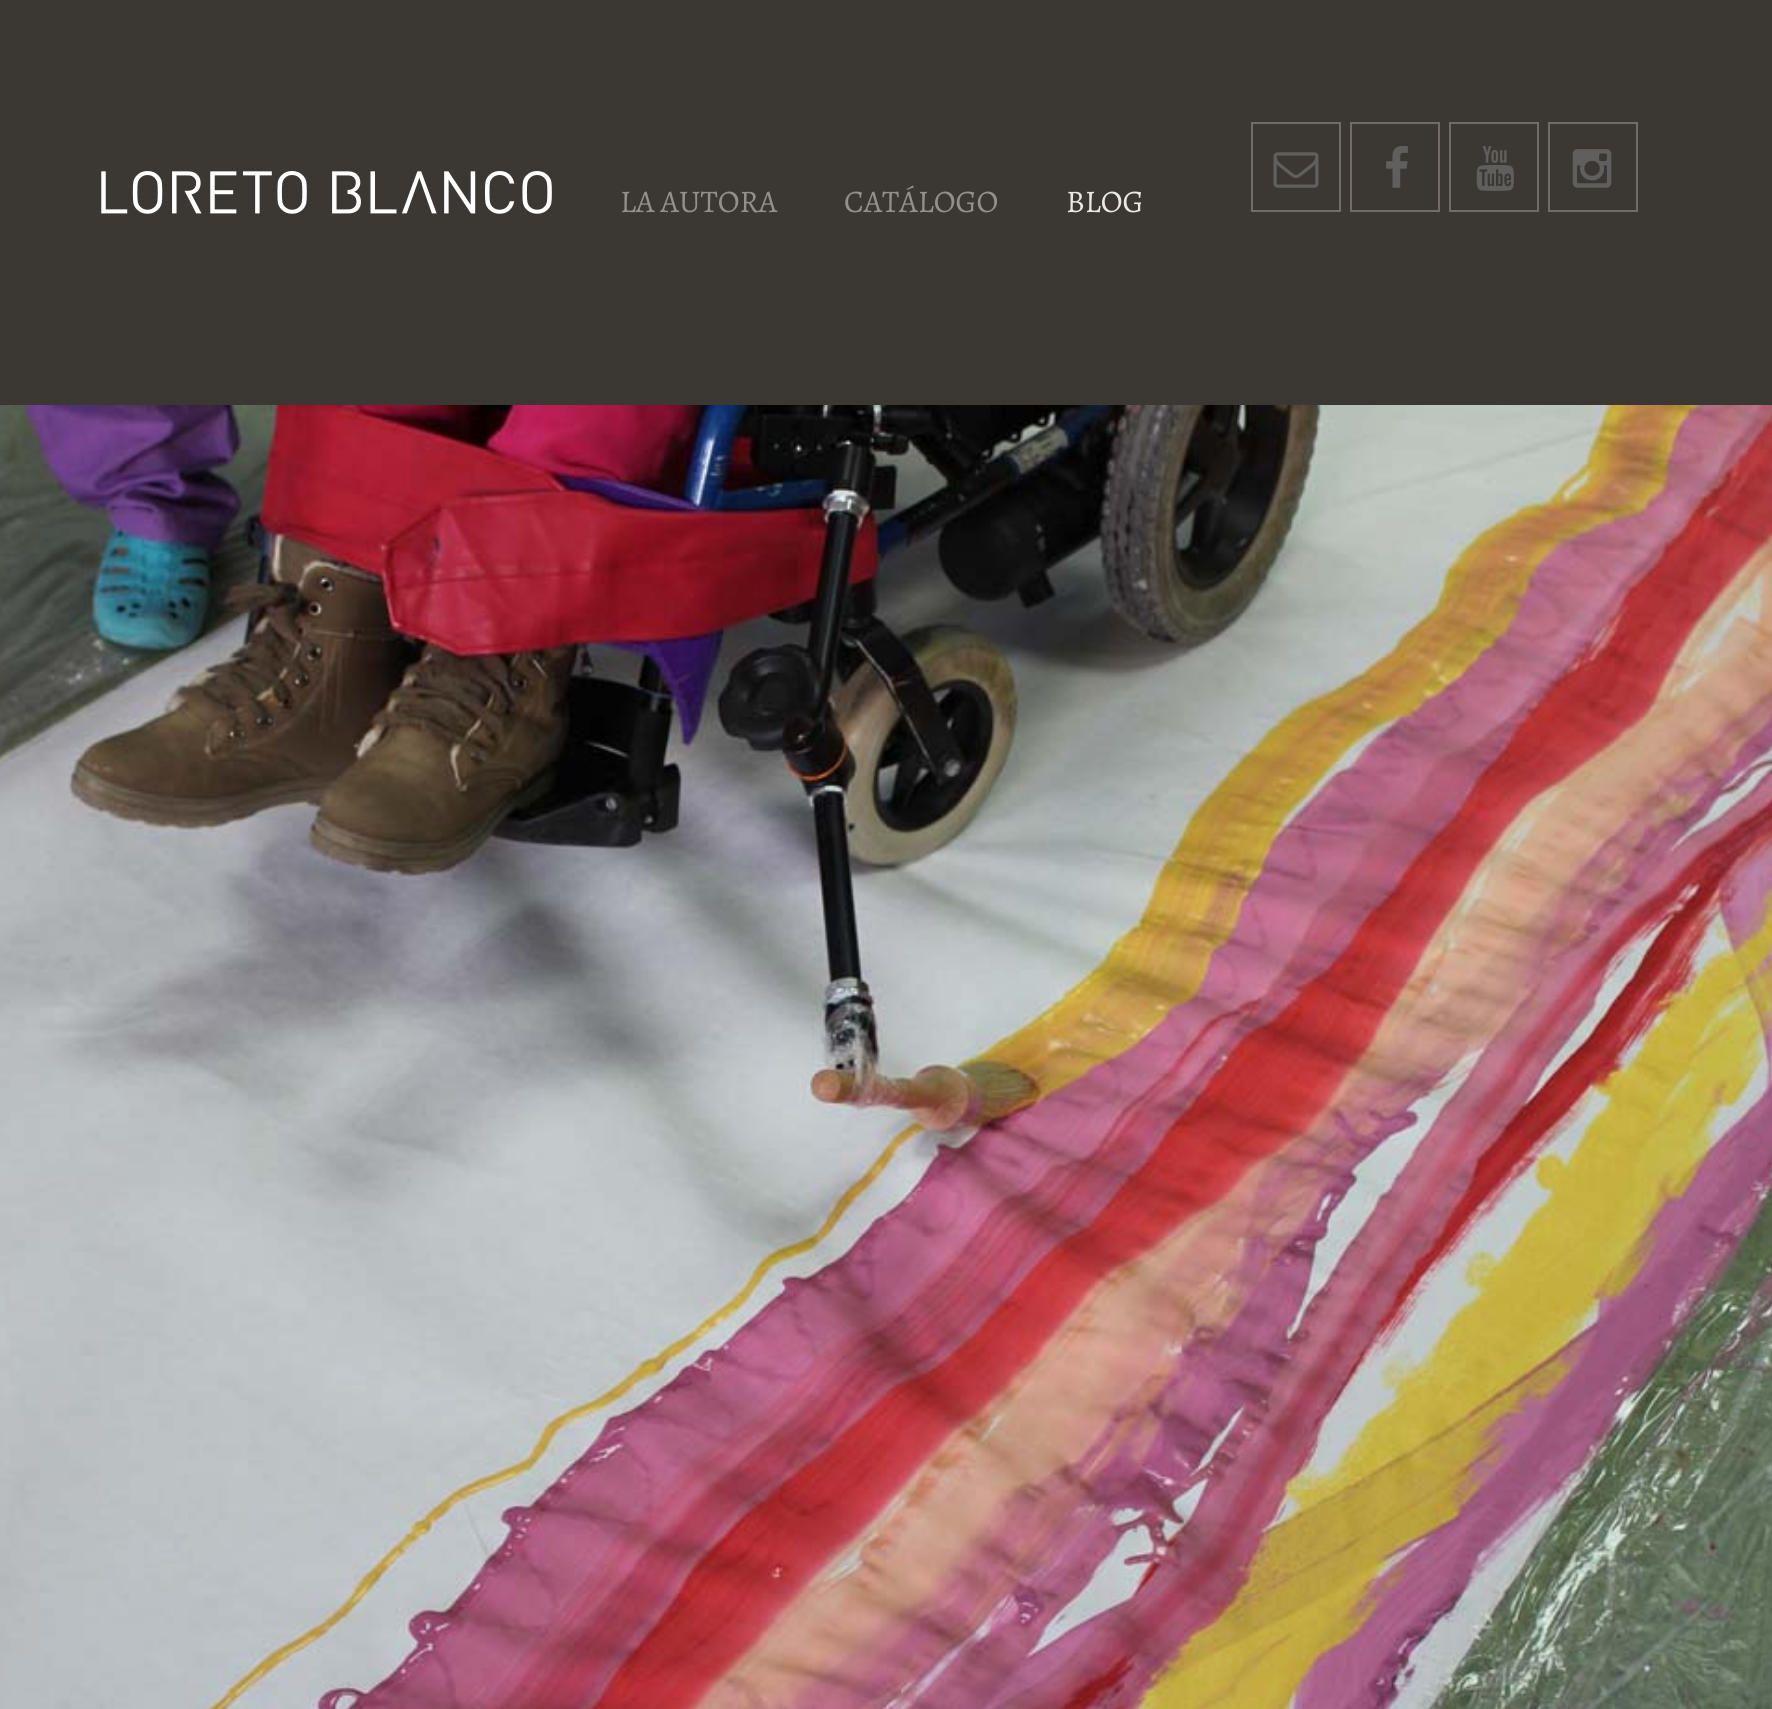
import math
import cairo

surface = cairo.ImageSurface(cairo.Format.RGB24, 1772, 1709)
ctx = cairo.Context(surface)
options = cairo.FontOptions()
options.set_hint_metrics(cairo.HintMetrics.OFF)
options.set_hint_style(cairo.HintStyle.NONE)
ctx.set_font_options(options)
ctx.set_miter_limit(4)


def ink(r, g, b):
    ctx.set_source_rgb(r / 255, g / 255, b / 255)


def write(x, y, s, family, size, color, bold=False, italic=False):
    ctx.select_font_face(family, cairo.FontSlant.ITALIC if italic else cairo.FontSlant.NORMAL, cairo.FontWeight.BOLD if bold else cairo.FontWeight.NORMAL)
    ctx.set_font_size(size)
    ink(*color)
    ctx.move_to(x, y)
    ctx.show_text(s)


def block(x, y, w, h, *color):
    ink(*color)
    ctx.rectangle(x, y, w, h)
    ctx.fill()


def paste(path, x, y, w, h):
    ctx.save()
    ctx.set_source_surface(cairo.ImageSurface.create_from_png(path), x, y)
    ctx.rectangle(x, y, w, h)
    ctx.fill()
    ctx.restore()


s1 = dict(family="Alegreya", size=31.5, color=(147, 144, 140))
s2 = dict(family="Alegreya", size=31.5, color=(234, 232, 227))

ink(255, 255, 255)
ctx.paint()
block(0, 0, 1772, 405, 59, 56, 52)
paste("pic1.png", 101, 171, 451, 43)
write(620, 212, "LA AUTORA", **s1)
write(844, 212, "CATÁLOGO", **s1)
write(1066, 212, "BLOG", **s2)
ctx.rectangle(1252, 123, 88, 88)
ink(115, 107, 104)
ctx.stroke()
paste("pic2.png", 1273, 152, 46, 36)
ctx.rectangle(1351, 123, 88, 88)
ctx.stroke()
paste("pic3.png", 1386, 146, 22, 42)
ctx.rectangle(1450, 123, 88, 88)
ctx.stroke()
paste("pic4.png", 1476, 146, 38, 45)
ctx.rectangle(1549, 123, 88, 88)
ctx.stroke()
paste("pic5.png", 1572, 149, 40, 39)
paste("pic6.png", 0, 405, 1772, 1304)
surface.write_to_png("screenshot.png")
